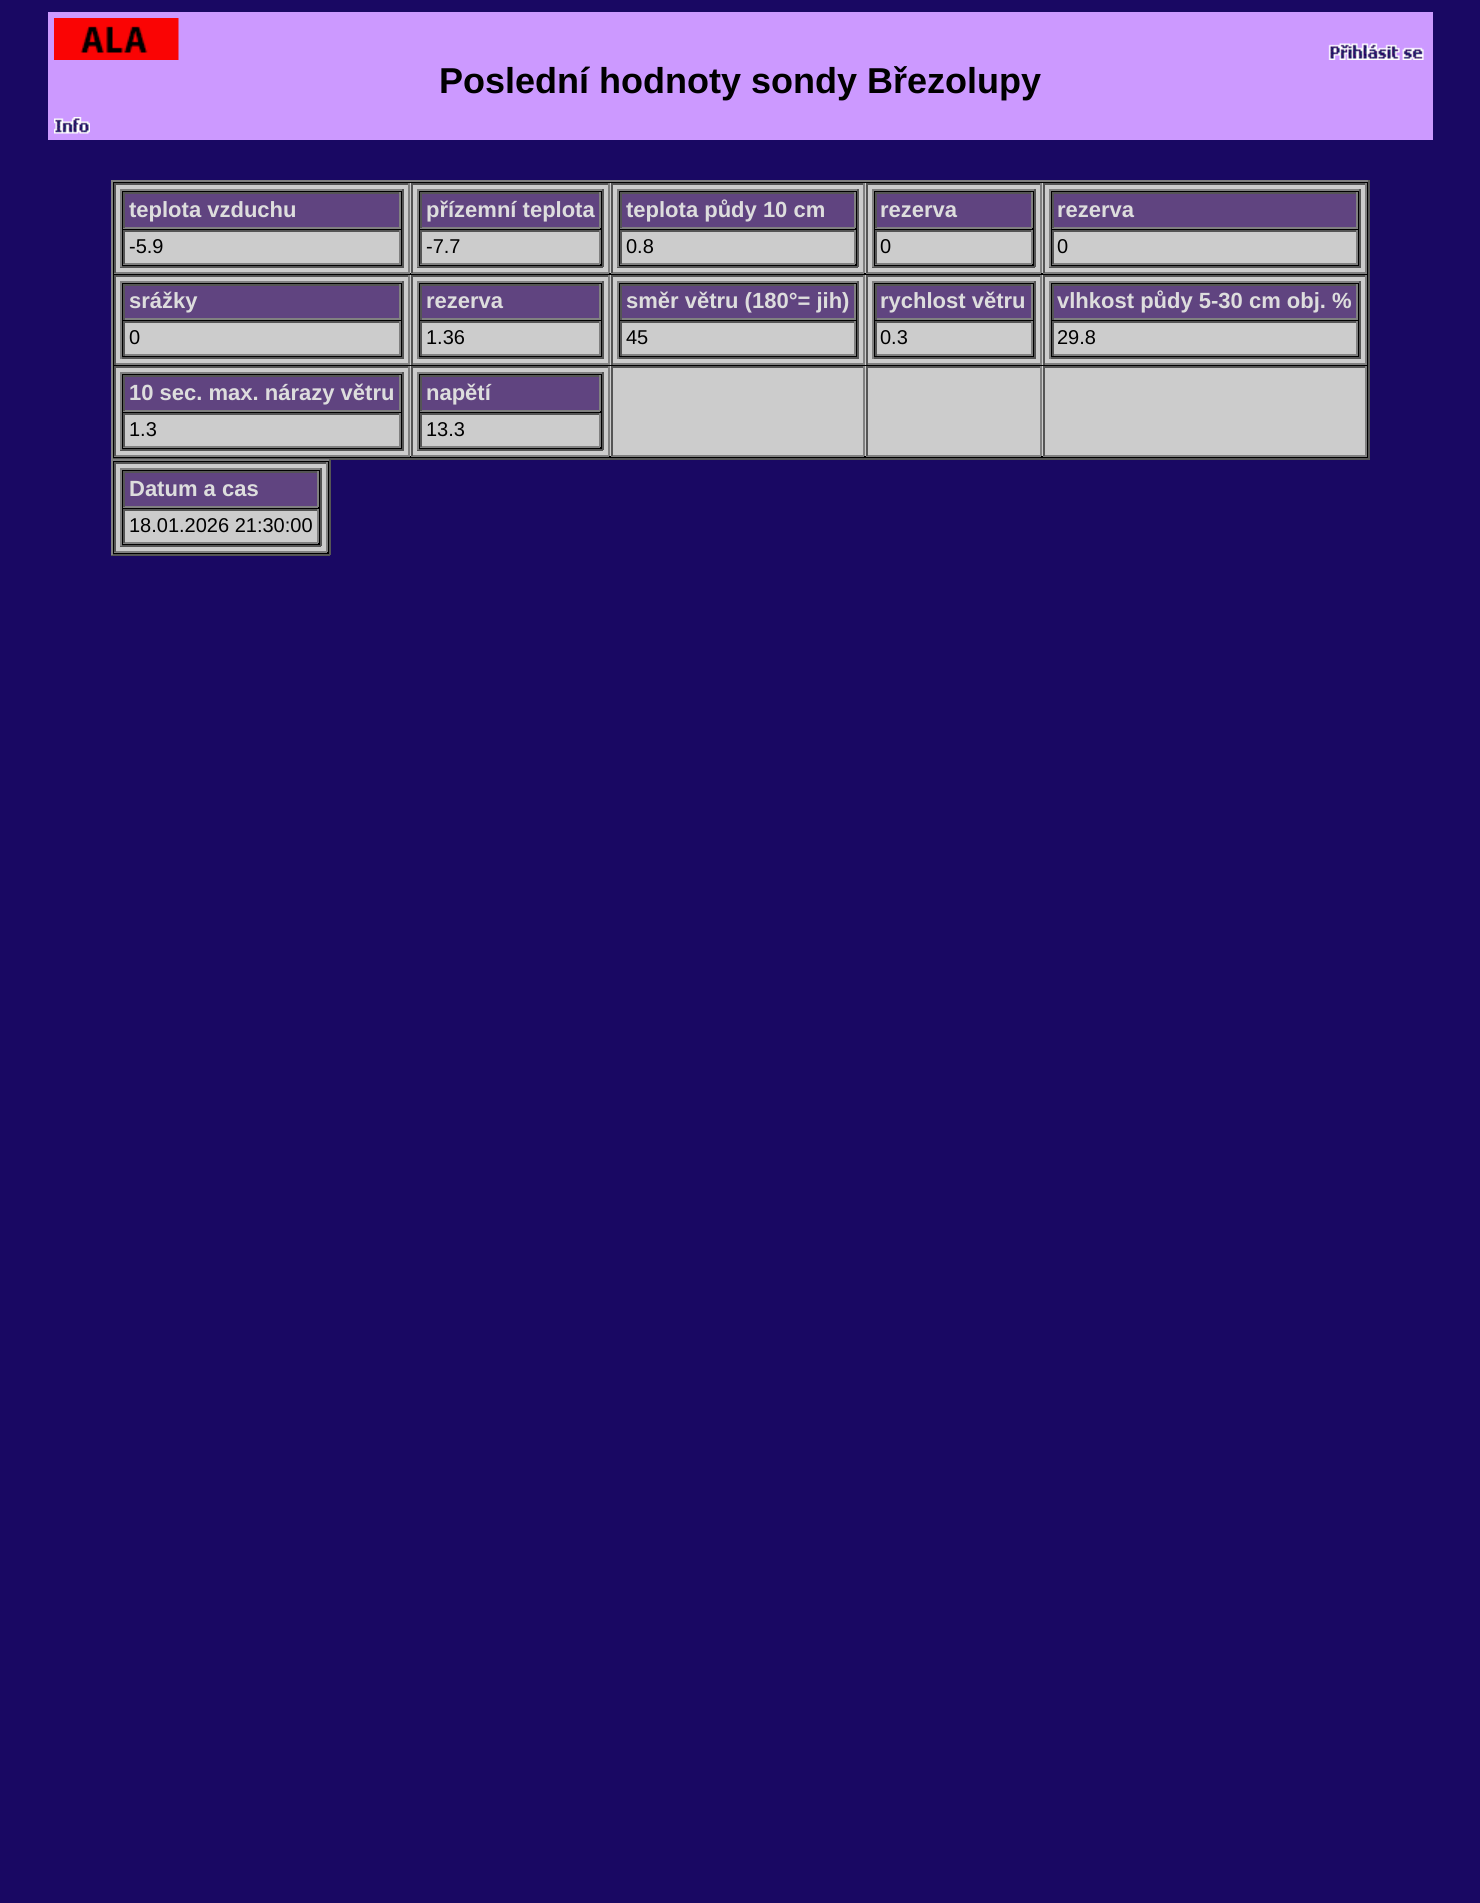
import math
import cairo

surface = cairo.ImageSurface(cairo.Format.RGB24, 1480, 1903)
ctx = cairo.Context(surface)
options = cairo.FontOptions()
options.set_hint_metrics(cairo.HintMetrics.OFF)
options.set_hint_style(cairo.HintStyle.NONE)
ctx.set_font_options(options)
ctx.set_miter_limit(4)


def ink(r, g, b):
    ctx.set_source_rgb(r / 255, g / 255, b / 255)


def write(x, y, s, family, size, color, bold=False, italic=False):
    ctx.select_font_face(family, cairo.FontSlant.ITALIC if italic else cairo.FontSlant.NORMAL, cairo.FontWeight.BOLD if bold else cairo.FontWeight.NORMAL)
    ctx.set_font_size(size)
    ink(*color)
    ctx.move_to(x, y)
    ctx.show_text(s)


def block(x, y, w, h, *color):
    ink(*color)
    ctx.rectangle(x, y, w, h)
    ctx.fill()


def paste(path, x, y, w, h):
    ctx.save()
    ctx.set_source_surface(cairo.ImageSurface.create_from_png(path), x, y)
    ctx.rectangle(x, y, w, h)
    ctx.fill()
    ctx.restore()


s1 = dict(family="Liberation Sans", size=36, color=(0, 0, 0), bold=True)
s2 = dict(family="Liberation Sans", size=22, color=(221, 221, 221), bold=True)
s3 = dict(family="Liberation Sans", size=20, color=(0, 0, 0))

ink(25, 8, 99)
ctx.paint()
block(48, 12, 1385, 128, 204, 153, 255)
paste("pic1.png", 54, 18, 125, 42)
paste("pic2.png", 1328, 43, 96, 17)
write(439, 93, "Poslední hodnoty sondy Březolupy", **s1)
paste("pic3.png", 54, 117, 36, 17)
block(113, 182, 1255, 276, 0, 0, 0)
block(111, 180, 1259, 2, 128, 128, 128)
block(1368, 180, 2, 279, 85, 85, 85)
block(111, 458, 1259, 2, 85, 85, 85)
block(111, 180, 2, 279, 128, 128, 128)
block(116, 183, 1249, 90, 204, 204, 204)
block(114, 183, 296, 2, 85, 85, 85)
block(408, 183, 2, 90, 128, 128, 128)
block(114, 272, 296, 2, 128, 128, 128)
block(114, 183, 2, 90, 85, 85, 85)
block(122, 191, 280, 75, 0, 0, 0)
block(120, 189, 284, 2, 128, 128, 128)
block(402, 189, 2, 78, 85, 85, 85)
block(120, 266, 284, 2, 85, 85, 85)
block(120, 189, 2, 78, 128, 128, 128)
block(125, 194, 274, 33, 96, 68, 128)
block(123, 192, 278, 2, 85, 85, 85)
block(399, 192, 2, 36, 128, 128, 128)
block(123, 227, 278, 2, 128, 128, 128)
block(123, 192, 2, 36, 85, 85, 85)
write(129, 217, "teplota vzduchu", **s2)
block(125, 232, 274, 31, 204, 204, 204)
block(123, 230, 278, 2, 85, 85, 85)
block(399, 230, 2, 34, 128, 128, 128)
block(123, 263, 278, 2, 128, 128, 128)
block(123, 230, 2, 34, 85, 85, 85)
write(129, 253, "-5.9", **s3)
block(411, 183, 198, 2, 85, 85, 85)
block(608, 183, 2, 90, 128, 128, 128)
block(411, 272, 198, 2, 128, 128, 128)
block(411, 183, 2, 90, 85, 85, 85)
block(419, 191, 183, 75, 0, 0, 0)
block(417, 189, 186, 2, 128, 128, 128)
block(602, 189, 2, 78, 85, 85, 85)
block(417, 266, 186, 2, 85, 85, 85)
block(417, 189, 2, 78, 128, 128, 128)
block(422, 194, 177, 33, 96, 68, 128)
block(420, 192, 180, 2, 85, 85, 85)
block(599, 192, 2, 36, 128, 128, 128)
block(420, 227, 180, 2, 128, 128, 128)
block(420, 192, 2, 36, 85, 85, 85)
write(426, 217, "přízemní teplota", **s2)
block(422, 232, 177, 31, 204, 204, 204)
block(420, 230, 180, 2, 85, 85, 85)
block(599, 230, 2, 34, 128, 128, 128)
block(420, 263, 180, 2, 128, 128, 128)
block(420, 230, 2, 34, 85, 85, 85)
write(426, 253, "-7.7", **s3)
block(611, 183, 253, 2, 85, 85, 85)
block(863, 183, 2, 90, 128, 128, 128)
block(611, 272, 253, 2, 128, 128, 128)
block(611, 183, 2, 90, 85, 85, 85)
block(619, 191, 238, 75, 0, 0, 0)
block(617, 189, 241, 2, 128, 128, 128)
block(857, 189, 2, 78, 85, 85, 85)
block(617, 266, 241, 2, 85, 85, 85)
block(617, 189, 2, 78, 128, 128, 128)
block(622, 194, 232, 33, 96, 68, 128)
block(620, 192, 235, 2, 85, 85, 85)
block(854, 192, 2, 36, 128, 128, 128)
block(620, 227, 235, 2, 128, 128, 128)
block(620, 192, 2, 36, 85, 85, 85)
write(626, 217, "teplota půdy 10 cm", **s2)
block(622, 232, 232, 31, 204, 204, 204)
block(620, 230, 235, 2, 85, 85, 85)
block(854, 230, 2, 34, 128, 128, 128)
block(620, 263, 235, 2, 128, 128, 128)
block(620, 230, 2, 34, 85, 85, 85)
write(626, 253, "0.8", **s3)
block(866, 183, 175, 2, 85, 85, 85)
block(1040, 183, 2, 90, 128, 128, 128)
block(866, 272, 175, 2, 128, 128, 128)
block(866, 183, 2, 90, 85, 85, 85)
block(874, 191, 160, 75, 0, 0, 0)
block(872, 189, 163, 2, 128, 128, 128)
block(1034, 189, 2, 78, 85, 85, 85)
block(872, 266, 163, 2, 85, 85, 85)
block(872, 189, 2, 78, 128, 128, 128)
block(877, 194, 154, 33, 96, 68, 128)
block(875, 192, 157, 2, 85, 85, 85)
block(1031, 192, 2, 36, 128, 128, 128)
block(875, 227, 157, 2, 128, 128, 128)
block(875, 192, 2, 36, 85, 85, 85)
write(880, 217, "rezerva", **s2)
block(877, 232, 154, 31, 204, 204, 204)
block(875, 230, 157, 2, 85, 85, 85)
block(1031, 230, 2, 34, 128, 128, 128)
block(875, 263, 157, 2, 128, 128, 128)
block(875, 230, 2, 34, 85, 85, 85)
write(880, 253, "0", **s3)
block(1043, 183, 324, 2, 85, 85, 85)
block(1365, 183, 2, 90, 128, 128, 128)
block(1043, 272, 324, 2, 128, 128, 128)
block(1043, 183, 2, 90, 85, 85, 85)
block(1051, 191, 308, 75, 0, 0, 0)
block(1049, 189, 312, 2, 128, 128, 128)
block(1359, 189, 2, 78, 85, 85, 85)
block(1049, 266, 312, 2, 85, 85, 85)
block(1049, 189, 2, 78, 128, 128, 128)
block(1054, 194, 302, 33, 96, 68, 128)
block(1052, 192, 306, 2, 85, 85, 85)
block(1356, 192, 2, 36, 128, 128, 128)
block(1052, 227, 306, 2, 128, 128, 128)
block(1052, 192, 2, 36, 85, 85, 85)
write(1057, 217, "rezerva", **s2)
block(1054, 232, 302, 31, 204, 204, 204)
block(1052, 230, 306, 2, 85, 85, 85)
block(1356, 230, 2, 34, 128, 128, 128)
block(1052, 263, 306, 2, 128, 128, 128)
block(1052, 230, 2, 34, 85, 85, 85)
write(1057, 253, "0", **s3)
block(116, 275, 1249, 90, 204, 204, 204)
block(114, 275, 296, 2, 85, 85, 85)
block(408, 275, 2, 90, 128, 128, 128)
block(114, 363, 296, 2, 128, 128, 128)
block(114, 275, 2, 90, 85, 85, 85)
block(122, 283, 280, 74, 0, 0, 0)
block(120, 281, 284, 2, 128, 128, 128)
block(402, 281, 2, 78, 85, 85, 85)
block(120, 357, 284, 2, 85, 85, 85)
block(120, 281, 2, 78, 128, 128, 128)
block(125, 286, 274, 32, 96, 68, 128)
block(123, 284, 278, 2, 85, 85, 85)
block(399, 284, 2, 36, 128, 128, 128)
block(123, 318, 278, 2, 128, 128, 128)
block(123, 284, 2, 36, 85, 85, 85)
write(129, 308, "srážky", **s2)
block(125, 323, 274, 31, 204, 204, 204)
block(123, 321, 278, 2, 85, 85, 85)
block(399, 321, 2, 35, 128, 128, 128)
block(123, 354, 278, 2, 128, 128, 128)
block(123, 321, 2, 35, 85, 85, 85)
write(129, 344, "0", **s3)
block(411, 275, 198, 2, 85, 85, 85)
block(608, 275, 2, 90, 128, 128, 128)
block(411, 363, 198, 2, 128, 128, 128)
block(411, 275, 2, 90, 85, 85, 85)
block(419, 283, 183, 74, 0, 0, 0)
block(417, 281, 186, 2, 128, 128, 128)
block(602, 281, 2, 78, 85, 85, 85)
block(417, 357, 186, 2, 85, 85, 85)
block(417, 281, 2, 78, 128, 128, 128)
block(422, 286, 177, 32, 96, 68, 128)
block(420, 284, 180, 2, 85, 85, 85)
block(599, 284, 2, 36, 128, 128, 128)
block(420, 318, 180, 2, 128, 128, 128)
block(420, 284, 2, 36, 85, 85, 85)
write(426, 308, "rezerva", **s2)
block(422, 323, 177, 31, 204, 204, 204)
block(420, 321, 180, 2, 85, 85, 85)
block(599, 321, 2, 35, 128, 128, 128)
block(420, 354, 180, 2, 128, 128, 128)
block(420, 321, 2, 35, 85, 85, 85)
write(426, 344, "1.36", **s3)
block(611, 275, 253, 2, 85, 85, 85)
block(863, 275, 2, 90, 128, 128, 128)
block(611, 363, 253, 2, 128, 128, 128)
block(611, 275, 2, 90, 85, 85, 85)
block(619, 283, 238, 74, 0, 0, 0)
block(617, 281, 241, 2, 128, 128, 128)
block(857, 281, 2, 78, 85, 85, 85)
block(617, 357, 241, 2, 85, 85, 85)
block(617, 281, 2, 78, 128, 128, 128)
block(622, 286, 232, 32, 96, 68, 128)
block(620, 284, 235, 2, 85, 85, 85)
block(854, 284, 2, 36, 128, 128, 128)
block(620, 318, 235, 2, 128, 128, 128)
block(620, 284, 2, 36, 85, 85, 85)
write(626, 308, "směr větru (180°= jih)", **s2)
block(622, 323, 232, 31, 204, 204, 204)
block(620, 321, 235, 2, 85, 85, 85)
block(854, 321, 2, 35, 128, 128, 128)
block(620, 354, 235, 2, 128, 128, 128)
block(620, 321, 2, 35, 85, 85, 85)
write(626, 344, "45", **s3)
block(866, 275, 175, 2, 85, 85, 85)
block(1040, 275, 2, 90, 128, 128, 128)
block(866, 363, 175, 2, 128, 128, 128)
block(866, 275, 2, 90, 85, 85, 85)
block(874, 283, 160, 74, 0, 0, 0)
block(872, 281, 163, 2, 128, 128, 128)
block(1034, 281, 2, 78, 85, 85, 85)
block(872, 357, 163, 2, 85, 85, 85)
block(872, 281, 2, 78, 128, 128, 128)
block(877, 286, 154, 32, 96, 68, 128)
block(875, 284, 157, 2, 85, 85, 85)
block(1031, 284, 2, 36, 128, 128, 128)
block(875, 318, 157, 2, 128, 128, 128)
block(875, 284, 2, 36, 85, 85, 85)
write(880, 308, "rychlost větru", **s2)
block(877, 323, 154, 31, 204, 204, 204)
block(875, 321, 157, 2, 85, 85, 85)
block(1031, 321, 2, 35, 128, 128, 128)
block(875, 354, 157, 2, 128, 128, 128)
block(875, 321, 2, 35, 85, 85, 85)
write(880, 344, "0.3", **s3)
block(1043, 275, 324, 2, 85, 85, 85)
block(1365, 275, 2, 90, 128, 128, 128)
block(1043, 363, 324, 2, 128, 128, 128)
block(1043, 275, 2, 90, 85, 85, 85)
block(1051, 283, 308, 74, 0, 0, 0)
block(1049, 281, 312, 2, 128, 128, 128)
block(1359, 281, 2, 78, 85, 85, 85)
block(1049, 357, 312, 2, 85, 85, 85)
block(1049, 281, 2, 78, 128, 128, 128)
block(1054, 286, 302, 32, 96, 68, 128)
block(1052, 284, 306, 2, 85, 85, 85)
block(1356, 284, 2, 36, 128, 128, 128)
block(1052, 318, 306, 2, 128, 128, 128)
block(1052, 284, 2, 36, 85, 85, 85)
write(1057, 308, "vlhkost půdy 5-30 cm obj. %", **s2)
block(1054, 323, 302, 31, 204, 204, 204)
block(1052, 321, 306, 2, 85, 85, 85)
block(1356, 321, 2, 35, 128, 128, 128)
block(1052, 354, 306, 2, 128, 128, 128)
block(1052, 321, 2, 35, 85, 85, 85)
write(1057, 344, "29.8", **s3)
block(116, 366, 1249, 90, 204, 204, 204)
block(114, 366, 296, 2, 85, 85, 85)
block(408, 366, 2, 90, 128, 128, 128)
block(114, 455, 296, 2, 128, 128, 128)
block(114, 366, 2, 90, 85, 85, 85)
block(122, 374, 280, 75, 0, 0, 0)
block(120, 372, 284, 2, 128, 128, 128)
block(402, 372, 2, 78, 85, 85, 85)
block(120, 449, 284, 2, 85, 85, 85)
block(120, 372, 2, 78, 128, 128, 128)
block(125, 377, 274, 33, 96, 68, 128)
block(123, 375, 278, 2, 85, 85, 85)
block(399, 375, 2, 36, 128, 128, 128)
block(123, 410, 278, 2, 128, 128, 128)
block(123, 375, 2, 36, 85, 85, 85)
write(129, 400, "10 sec. max. nárazy větru", **s2)
block(125, 415, 274, 31, 204, 204, 204)
block(123, 413, 278, 2, 85, 85, 85)
block(399, 413, 2, 34, 128, 128, 128)
block(123, 446, 278, 2, 128, 128, 128)
block(123, 413, 2, 34, 85, 85, 85)
write(129, 436, "1.3", **s3)
block(411, 366, 198, 2, 85, 85, 85)
block(608, 366, 2, 90, 128, 128, 128)
block(411, 455, 198, 2, 128, 128, 128)
block(411, 366, 2, 90, 85, 85, 85)
block(419, 374, 183, 75, 0, 0, 0)
block(417, 372, 186, 2, 128, 128, 128)
block(602, 372, 2, 78, 85, 85, 85)
block(417, 449, 186, 2, 85, 85, 85)
block(417, 372, 2, 78, 128, 128, 128)
block(422, 377, 177, 33, 96, 68, 128)
block(420, 375, 180, 2, 85, 85, 85)
block(599, 375, 2, 36, 128, 128, 128)
block(420, 410, 180, 2, 128, 128, 128)
block(420, 375, 2, 36, 85, 85, 85)
write(426, 400, "napětí", **s2)
block(422, 415, 177, 31, 204, 204, 204)
block(420, 413, 180, 2, 85, 85, 85)
block(599, 413, 2, 34, 128, 128, 128)
block(420, 446, 180, 2, 128, 128, 128)
block(420, 413, 2, 34, 85, 85, 85)
write(426, 436, "13.3", **s3)
block(611, 366, 253, 2, 85, 85, 85)
block(863, 366, 2, 90, 128, 128, 128)
block(611, 455, 253, 2, 128, 128, 128)
block(611, 366, 2, 90, 85, 85, 85)
block(866, 366, 175, 2, 85, 85, 85)
block(1040, 366, 2, 90, 128, 128, 128)
block(866, 455, 175, 2, 128, 128, 128)
block(866, 366, 2, 90, 85, 85, 85)
block(1043, 366, 324, 2, 85, 85, 85)
block(1365, 366, 2, 90, 128, 128, 128)
block(1043, 455, 324, 2, 128, 128, 128)
block(1043, 366, 2, 90, 85, 85, 85)
block(113, 461, 216, 93, 0, 0, 0)
block(111, 459, 219, 2, 128, 128, 128)
block(329, 459, 2, 96, 85, 85, 85)
block(111, 554, 219, 2, 85, 85, 85)
block(111, 459, 2, 96, 128, 128, 128)
block(116, 464, 210, 87, 204, 204, 204)
block(114, 462, 213, 2, 85, 85, 85)
block(326, 462, 2, 90, 128, 128, 128)
block(114, 551, 213, 2, 128, 128, 128)
block(114, 462, 2, 90, 85, 85, 85)
block(122, 470, 198, 75, 0, 0, 0)
block(120, 468, 201, 2, 128, 128, 128)
block(320, 468, 2, 78, 85, 85, 85)
block(120, 545, 201, 2, 85, 85, 85)
block(120, 468, 2, 78, 128, 128, 128)
block(125, 473, 192, 33, 96, 68, 128)
block(123, 471, 195, 2, 85, 85, 85)
block(317, 471, 2, 36, 128, 128, 128)
block(123, 506, 195, 2, 128, 128, 128)
block(123, 471, 2, 36, 85, 85, 85)
write(129, 496, "Datum a cas", **s2)
block(125, 511, 192, 31, 204, 204, 204)
block(123, 509, 195, 2, 85, 85, 85)
block(317, 509, 2, 34, 128, 128, 128)
block(123, 542, 195, 2, 128, 128, 128)
block(123, 509, 2, 34, 85, 85, 85)
write(129, 532, "18.01.2026 21:30:00", **s3)
surface.write_to_png("screenshot.png")
